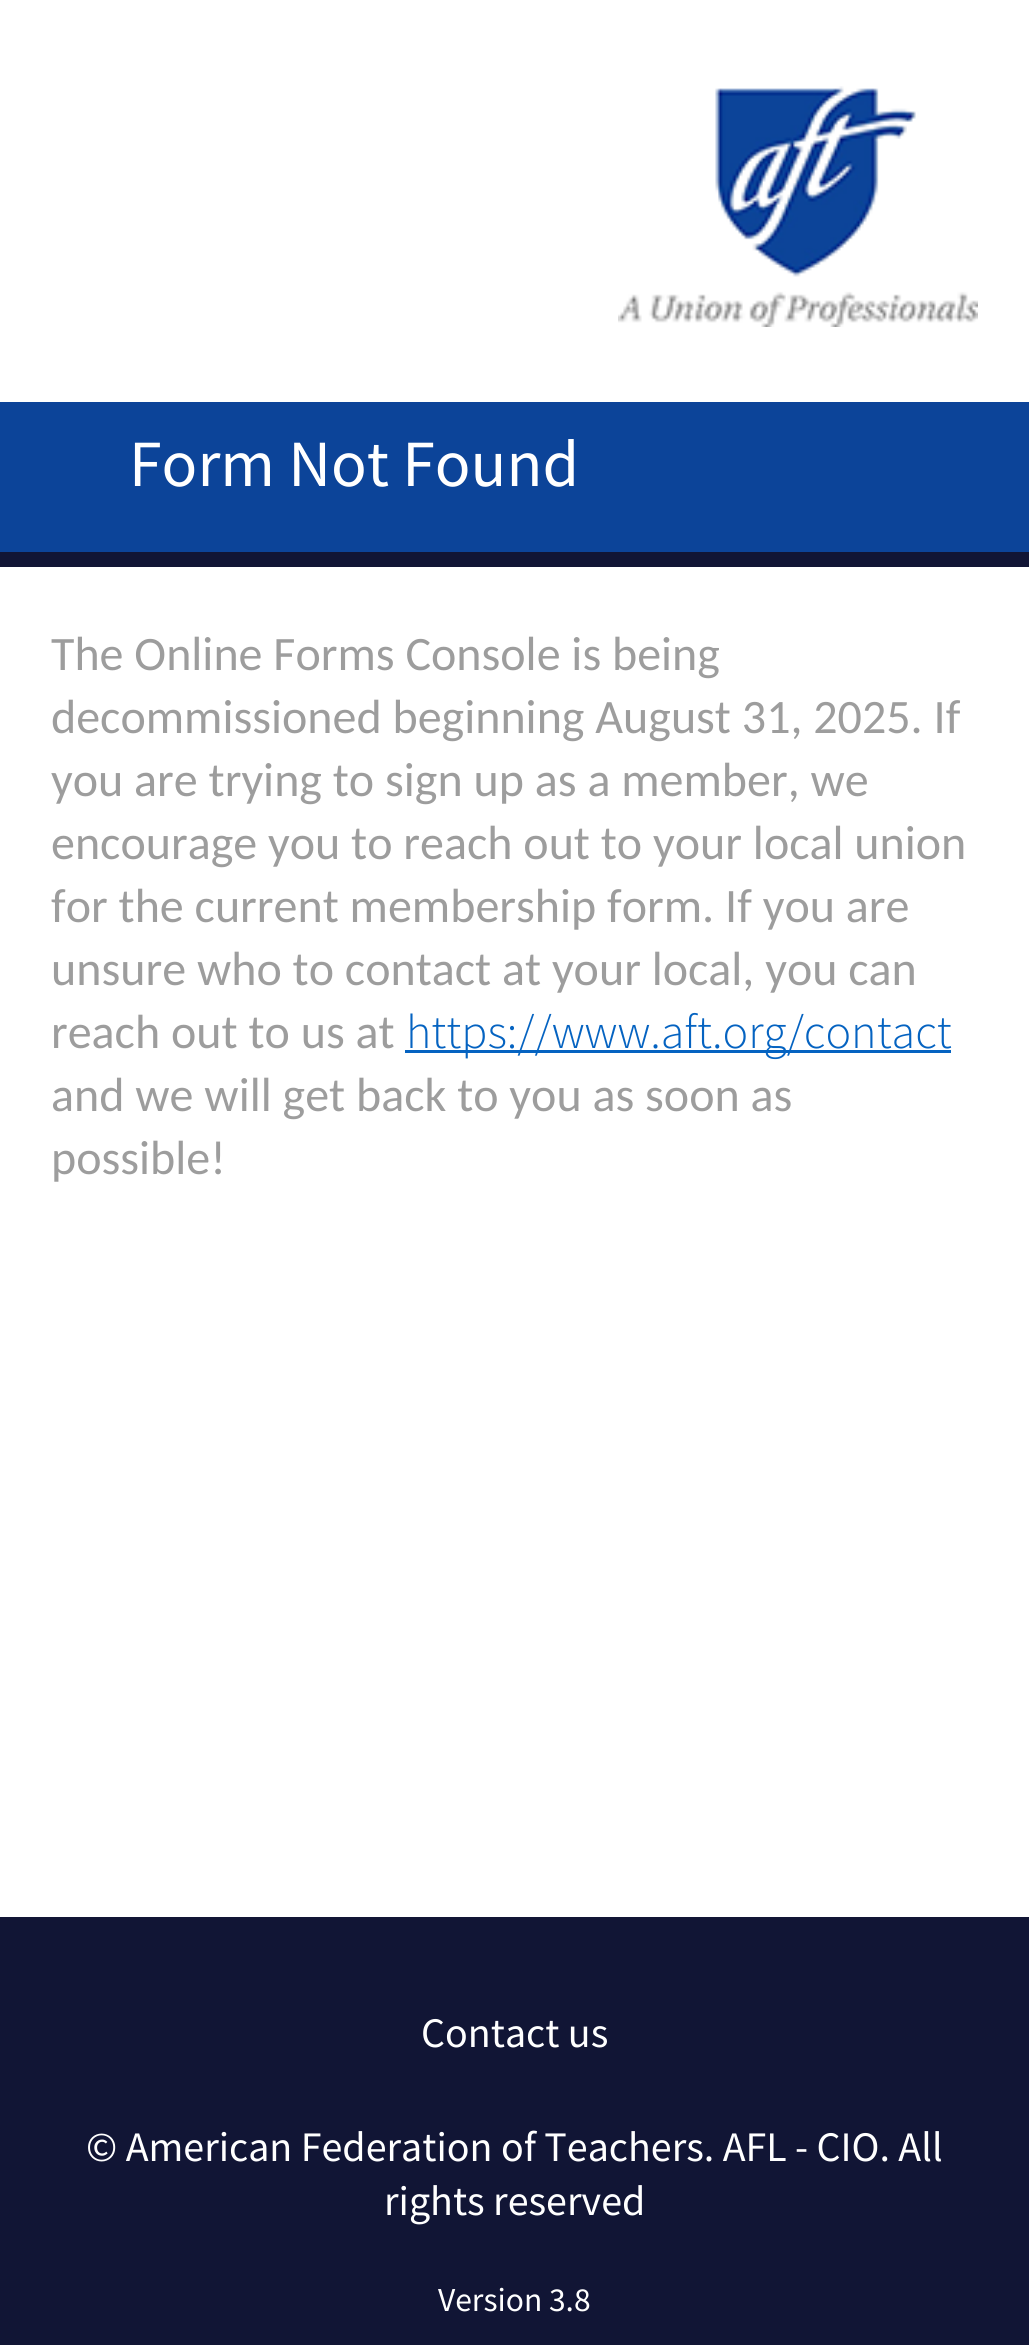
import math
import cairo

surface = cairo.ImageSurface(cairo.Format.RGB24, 1029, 2345)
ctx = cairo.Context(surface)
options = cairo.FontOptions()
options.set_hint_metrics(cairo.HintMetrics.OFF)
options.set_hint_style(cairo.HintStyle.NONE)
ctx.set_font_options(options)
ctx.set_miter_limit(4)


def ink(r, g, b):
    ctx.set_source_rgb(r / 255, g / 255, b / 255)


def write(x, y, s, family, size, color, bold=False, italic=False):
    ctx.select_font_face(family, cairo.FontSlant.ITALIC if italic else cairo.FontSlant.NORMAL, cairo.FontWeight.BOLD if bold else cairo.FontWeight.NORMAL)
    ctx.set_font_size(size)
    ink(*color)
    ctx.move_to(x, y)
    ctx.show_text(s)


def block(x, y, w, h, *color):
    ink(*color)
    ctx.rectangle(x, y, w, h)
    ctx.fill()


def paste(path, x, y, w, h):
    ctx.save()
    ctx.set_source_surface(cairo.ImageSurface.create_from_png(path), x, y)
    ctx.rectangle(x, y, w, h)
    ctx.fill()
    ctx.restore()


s1 = dict(family="Source Sans Pro", size=66, color=(255, 255, 255))
s2 = dict(family="Carlito", size=48, color=(157, 157, 157))
s3 = dict(family="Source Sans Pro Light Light", size=48, color=(5, 99, 193))
s4 = dict(family="Source Sans Pro", size=42, color=(255, 255, 255))
s5 = dict(family="Source Sans Pro", size=33.5, color=(255, 255, 255))

ink(255, 255, 255)
ctx.paint()
paste("pic1.png", 618, 86, 360, 241)
block(0, 402, 1029, 150, 12, 68, 153)
block(0, 552, 1029, 15, 17, 21, 53)
write(129, 486, "Form Not Found", **s1)
write(51, 670, "The Online Forms Console is being", **s2)
write(51, 733, "decommissioned beginning August 31, 2025. If", **s2)
write(51, 796, "you are trying to sign up as a member, we", **s2)
write(51, 859, "encourage you to reach out to your local union", **s2)
write(51, 922, "for the current membership form. If you are", **s2)
write(51, 985, "unsure who to contact at your local, you can", **s2)
write(51, 1048, "reach out to us at", **s2)
block(405, 1050, 546, 3, 5, 99, 193)
write(406, 1048, "https://www.aft.org/contact", **s3)
write(51, 1111, "and we will get back to you as soon as", **s2)
write(51, 1174, "possible!", **s2)
block(0, 1917, 1029, 428, 17, 21, 53)
write(421, 2047, "Contact us", **s4)
write(86, 2161, "© American Federation of Teachers. AFL - CIO. All", **s4)
write(384, 2215, "rights reserved", **s4)
write(438, 2311, "Version 3.8", **s5)
surface.write_to_png("screenshot.png")
